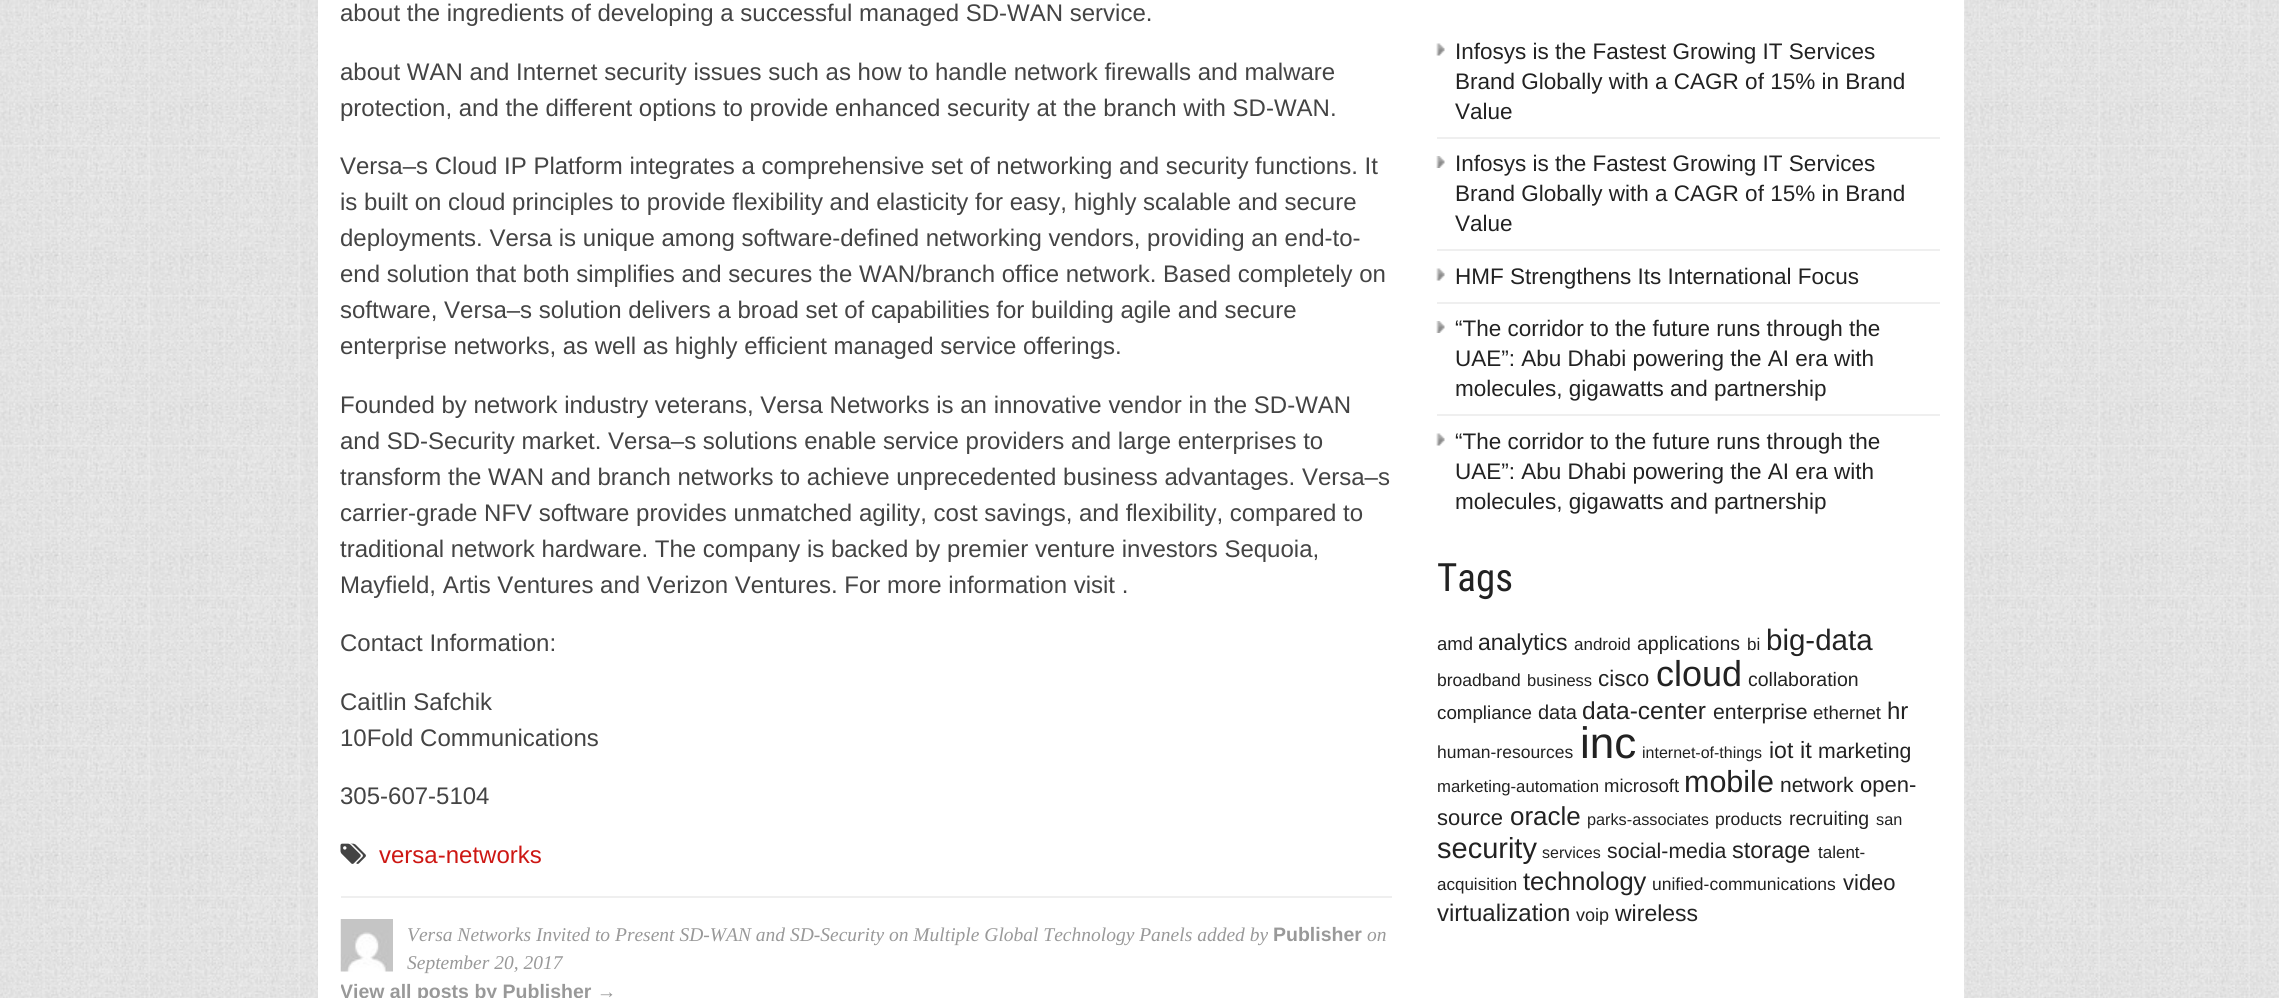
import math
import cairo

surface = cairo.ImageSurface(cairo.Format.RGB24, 2279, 998)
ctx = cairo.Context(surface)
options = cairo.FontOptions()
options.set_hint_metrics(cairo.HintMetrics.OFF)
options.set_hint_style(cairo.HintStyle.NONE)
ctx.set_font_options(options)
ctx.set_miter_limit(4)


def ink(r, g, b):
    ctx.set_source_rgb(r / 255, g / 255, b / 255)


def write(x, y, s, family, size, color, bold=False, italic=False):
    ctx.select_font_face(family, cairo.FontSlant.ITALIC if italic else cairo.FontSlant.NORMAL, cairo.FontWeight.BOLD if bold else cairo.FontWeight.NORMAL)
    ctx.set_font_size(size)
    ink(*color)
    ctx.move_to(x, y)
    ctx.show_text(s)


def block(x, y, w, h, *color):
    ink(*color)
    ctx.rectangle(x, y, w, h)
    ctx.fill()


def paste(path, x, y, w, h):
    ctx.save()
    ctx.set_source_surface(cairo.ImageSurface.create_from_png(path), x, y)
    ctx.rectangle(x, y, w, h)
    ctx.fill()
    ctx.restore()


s1 = dict(family="Liberation Sans", size=24, color=(68, 68, 68))
s2 = dict(family="Liberation Sans", size=24, color=(205, 23, 19))
s3 = dict(family="Liberation Serif", size=19.5, color=(153, 153, 153), italic=True)
s4 = dict(family="Liberation Sans", size=19.5, color=(153, 153, 153), bold=True)
s5 = dict(family="Liberation Sans", size=22.5, color=(34, 34, 34))
s6 = dict(family="Roboto Condensed", size=39, color=(34, 34, 34))
s7 = dict(family="Liberation Sans", size=18.5, color=(34, 34, 34))
s8 = dict(family="Liberation Sans", size=23, color=(34, 34, 34))
s9 = dict(family="Liberation Sans", size=17, color=(34, 34, 34))
s10 = dict(family="Liberation Sans", size=19.5, color=(34, 34, 34))
s11 = dict(family="Liberation Sans", size=29.5, color=(34, 34, 34))
s12 = dict(family="Liberation Sans", size=17.5, color=(34, 34, 34))
s13 = dict(family="Liberation Sans", size=16.5, color=(34, 34, 34))
s14 = dict(family="Liberation Sans", size=36, color=(34, 34, 34))
s15 = dict(family="Liberation Sans", size=18.75, color=(34, 34, 34))
s16 = dict(family="Liberation Sans", size=20, color=(34, 34, 34))
s17 = dict(family="Liberation Sans", size=24.5, color=(34, 34, 34))
s18 = dict(family="Liberation Sans", size=21.25, color=(34, 34, 34))
s19 = dict(family="Liberation Sans", size=24, color=(34, 34, 34))
s20 = dict(family="Liberation Sans", size=44, color=(34, 34, 34))
s21 = dict(family="Liberation Sans", size=16, color=(34, 34, 34))
s22 = dict(family="Liberation Sans", size=23.5, color=(34, 34, 34))
s23 = dict(family="Liberation Sans", size=16.75, color=(34, 34, 34))
s24 = dict(family="Liberation Sans", size=30.5, color=(34, 34, 34))
s25 = dict(family="Liberation Sans", size=21, color=(34, 34, 34))
s26 = dict(family="Liberation Sans", size=22, color=(34, 34, 34))
s27 = dict(family="Liberation Sans", size=26, color=(34, 34, 34))
s28 = dict(family="Liberation Sans", size=16.25, color=(34, 34, 34))
s29 = dict(family="Liberation Sans", size=29, color=(34, 34, 34))
s30 = dict(family="Liberation Sans", size=25.5, color=(34, 34, 34))
s31 = dict(family="Liberation Sans", size=18, color=(34, 34, 34))

ink(255, 255, 255)
ctx.paint()
paste("pic1.png", 0, 0, 2279, 998)
block(318, 0, 1646, 998, 255, 255, 255)
write(340, 21, "about the ingredients of developing a successful managed SD-WAN service.", **s1)
write(340, 80, "about WAN and Internet security issues such as how to handle network firewalls and malware", **s1)
write(340, 116, "protection, and the different options to provide enhanced security at the branch with SD-WAN.", **s1)
write(340, 174, "Versa–s Cloud IP Platform integrates a comprehensive set of networking and security functions. It", **s1)
write(340, 210, "is built on cloud principles to provide flexibility and elasticity for easy, highly scalable and secure", **s1)
write(340, 246, "deployments. Versa is unique among software-defined networking vendors, providing an end-to-", **s1)
write(340, 282, "end solution that both simplifies and secures the WAN/branch office network. Based completely on", **s1)
write(340, 318, "software, Versa–s solution delivers a broad set of capabilities for building agile and secure", **s1)
write(340, 354, "enterprise networks, as well as highly efficient managed service offerings.", **s1)
write(340, 413, "Founded by network industry veterans, Versa Networks is an innovative vendor in the SD-WAN", **s1)
write(340, 449, "and SD-Security market. Versa–s solutions enable service providers and large enterprises to", **s1)
write(340, 485, "transform the WAN and branch networks to achieve unprecedented business advantages. Versa–s", **s1)
write(340, 521, "carrier-grade NFV software provides unmatched agility, cost savings, and flexibility, compared to", **s1)
write(340, 557, "traditional network hardware. The company is backed by premier venture investors Sequoia,", **s1)
write(340, 593, "Mayfield, Artis Ventures and Verizon Ventures. For more information visit .", **s1)
write(340, 651, "Contact Information:", **s1)
write(340, 710, "Caitlin Safchik", **s1)
write(340, 746, "10Fold Communications", **s1)
write(340, 804, "305-607-5104", **s1)
paste("pic2.png", 340, 843, 26, 21)
write(379, 863, "versa-networks", **s2)
block(341, 896, 1051, 2, 239, 239, 239)
paste("pic3.png", 340, 919, 53, 53)
write(407, 941, "Versa Networks Invited to Present SD-WAN and SD-Security on Multiple Global Technology Panels added by", **s3)
write(1273, 941, "Publisher", **s4)
write(1367, 941, "on", **s3)
write(407, 969, "September 20, 2017", **s3)
ctx.save()
ctx.rectangle(341, 897, 1051, 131)
ctx.clip()
write(340, 998, "View all posts by Publisher →", **s4)
ctx.restore()
paste("pic4.png", 1436, 43, 9, 13)
block(1437, 137, 503, 2, 239, 239, 239)
write(1455, 59, "Infosys is the Fastest Growing IT Services", **s5)
write(1455, 89, "Brand Globally with a CAGR of 15% in Brand", **s5)
write(1455, 119, "Value", **s5)
paste("pic5.png", 1436, 156, 9, 12)
block(1437, 249, 503, 2, 239, 239, 239)
write(1455, 171, "Infosys is the Fastest Growing IT Services", **s5)
write(1455, 201, "Brand Globally with a CAGR of 15% in Brand", **s5)
write(1455, 231, "Value", **s5)
paste("pic4.png", 1436, 268, 9, 13)
block(1437, 302, 503, 2, 239, 239, 239)
write(1455, 284, "HMF Strengthens Its International Focus", **s5)
paste("pic5.png", 1436, 321, 9, 12)
block(1437, 414, 503, 2, 239, 239, 239)
write(1455, 336, "“The corridor to the future runs through the", **s5)
write(1455, 366, "UAE”: Abu Dhabi powering the AI era with", **s5)
write(1455, 396, "molecules, gigawatts and partnership", **s5)
paste("pic4.png", 1436, 433, 9, 13)
write(1455, 449, "“The corridor to the future runs through the", **s5)
write(1455, 479, "UAE”: Abu Dhabi powering the AI era with", **s5)
write(1455, 509, "molecules, gigawatts and partnership", **s5)
write(1437, 591, "Tags", **s6)
write(1437, 650, "amd", **s7)
write(1478, 650, "analytics", **s8)
write(1574, 650, "android", **s9)
write(1637, 650, "applications", **s10)
write(1747, 650, "bi", **s9)
write(1766, 650, "big-data", **s11)
write(1437, 686, "broadband", **s12)
write(1527, 686, "business", **s13)
write(1598, 686, "cisco", **s5)
write(1656, 686, "cloud", **s14)
write(1748, 686, "collaboration", **s10)
write(1437, 719, "compliance", **s15)
write(1538, 719, "data", **s16)
write(1582, 719, "data-center", **s17)
write(1713, 719, "enterprise", **s18)
write(1813, 719, "ethernet", **s7)
write(1887, 719, "hr", **s19)
write(1437, 758, "human-resources", **s12)
write(1580, 758, "inc", **s20)
write(1642, 758, "internet-of-things", **s21)
write(1769, 758, "iot", **s8)
write(1800, 758, "it", **s22)
write(1818, 758, "marketing", **s18)
write(1437, 792, "marketing-automation", **s23)
write(1604, 792, "microsoft", **s7)
write(1684, 792, "mobile", **s24)
write(1780, 792, "network", **s25)
write(1860, 792, "open-", **s26)
write(1437, 825, "source", **s26)
write(1510, 825, "oracle", **s27)
write(1587, 825, "parks-associates", **s28)
write(1715, 825, "products", **s12)
write(1789, 825, "recruiting", **s10)
write(1876, 825, "san", **s28)
write(1437, 858, "security", **s29)
write(1542, 858, "services", **s21)
write(1607, 858, "social-media", **s18)
write(1732, 858, "storage", **s22)
write(1818, 858, "talent-", **s9)
write(1437, 890, "acquisition", **s9)
write(1523, 890, "technology", **s30)
write(1652, 890, "unified-communications", **s12)
write(1843, 890, "video", **s26)
write(1437, 921, "virtualization", **s19)
write(1576, 921, "voip", **s31)
write(1615, 921, "wireless", **s8)
surface.write_to_png("screenshot.png")
